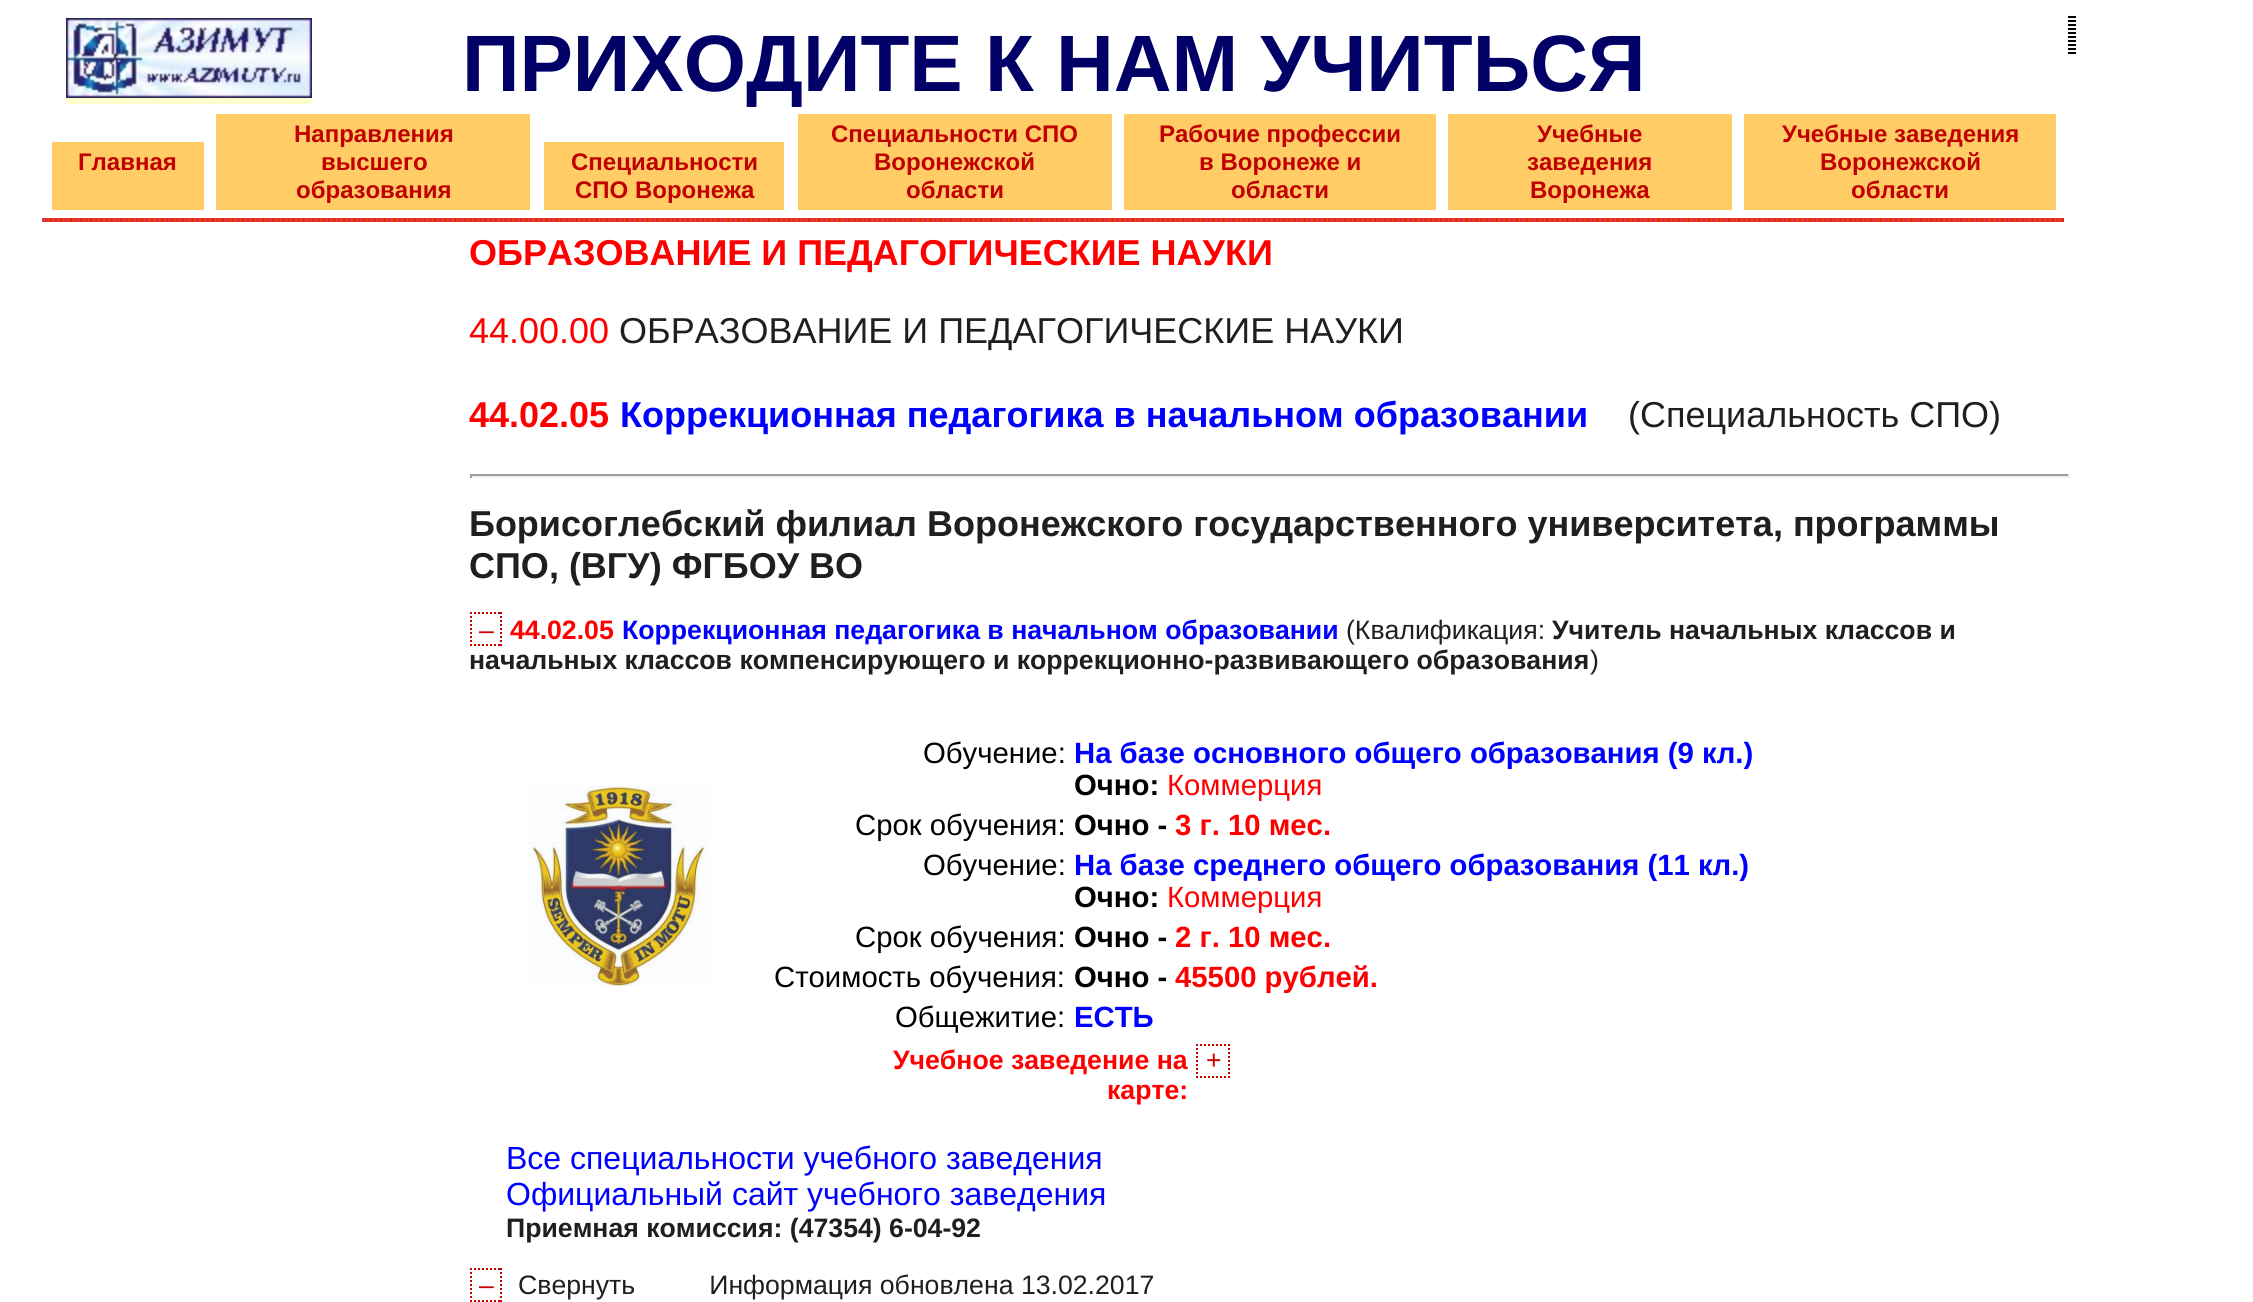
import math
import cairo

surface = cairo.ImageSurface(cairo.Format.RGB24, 2253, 1302)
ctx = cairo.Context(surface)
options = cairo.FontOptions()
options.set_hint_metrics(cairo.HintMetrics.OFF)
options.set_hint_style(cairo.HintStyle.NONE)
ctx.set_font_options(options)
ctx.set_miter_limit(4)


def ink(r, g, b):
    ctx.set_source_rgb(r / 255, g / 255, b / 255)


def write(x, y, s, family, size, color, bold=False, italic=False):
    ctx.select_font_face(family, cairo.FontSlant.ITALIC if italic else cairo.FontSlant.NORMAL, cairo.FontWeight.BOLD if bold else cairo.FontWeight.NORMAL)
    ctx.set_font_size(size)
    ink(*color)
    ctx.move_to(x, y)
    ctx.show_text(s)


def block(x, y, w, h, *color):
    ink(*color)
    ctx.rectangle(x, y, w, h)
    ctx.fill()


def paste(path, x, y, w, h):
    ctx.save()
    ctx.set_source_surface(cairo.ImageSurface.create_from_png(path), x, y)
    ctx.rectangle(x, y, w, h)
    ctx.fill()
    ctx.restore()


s1 = dict(family="Liberation Sans", size=80, color=(0, 0, 102), bold=True)
s2 = dict(family="Liberation Sans", size=24, color=(193, 0, 0), bold=True)
s3 = dict(family="Liberation Sans", size=36, color=(255, 0, 0), bold=True)
s4 = dict(family="Liberation Sans", size=36, color=(255, 0, 0))
s5 = dict(family="Liberation Sans", size=36, color=(31, 31, 31))
s6 = dict(family="Liberation Sans", size=36, color=(0, 0, 255), bold=True)
s7 = dict(family="Liberation Sans", size=36, color=(31, 31, 31), bold=True)
s8 = dict(family="Liberation Sans", size=26.65, color=(204, 0, 0))
s9 = dict(family="Liberation Sans", size=26.65, color=(255, 0, 0), bold=True)
s10 = dict(family="Liberation Sans", size=26.65, color=(0, 0, 255), bold=True)
s11 = dict(family="Liberation Sans", size=26.65, color=(31, 31, 31))
s12 = dict(family="Liberation Sans", size=26.65, color=(31, 31, 31), bold=True)
s13 = dict(family="Liberation Sans", size=29.3, color=(0, 0, 0))
s14 = dict(family="Liberation Sans", size=29.3, color=(0, 0, 255), bold=True)
s15 = dict(family="Liberation Sans", size=29.3, color=(0, 0, 0), bold=True)
s16 = dict(family="Liberation Sans", size=29.3, color=(255, 0, 0))
s17 = dict(family="Liberation Sans", size=29.3, color=(255, 0, 0), bold=True)
s18 = dict(family="Liberation Sans", size=32, color=(0, 0, 255))

ink(255, 255, 255)
ctx.paint()
paste("pic1.png", 66, 18, 246, 80)
block(66, 98, 246, 6, 255, 255, 204)
write(462, 91, "ПРИХОДИТЕ К НАМ УЧИТЬСЯ", **s1)
block(52, 142, 152, 68, 255, 204, 102)
write(78, 170, "Главная", **s2)
block(216, 114, 314, 96, 255, 204, 102)
write(294, 142, "Направления", **s2)
write(321, 170, "высшего", **s2)
write(296, 198, "образования", **s2)
block(544, 142, 240, 68, 255, 204, 102)
write(571, 170, "Специальности", **s2)
write(575, 198, "СПО Воронежа", **s2)
block(798, 114, 314, 96, 255, 204, 102)
write(831, 142, "Специальности СПО", **s2)
write(874, 170, "Воронежской", **s2)
write(906, 198, "области", **s2)
block(1124, 114, 312, 96, 255, 204, 102)
write(1159, 142, "Рабочие профессии", **s2)
write(1199, 170, "в Воронеже и", **s2)
write(1231, 198, "области", **s2)
block(1448, 114, 284, 96, 255, 204, 102)
write(1537, 142, "Учебные", **s2)
write(1527, 170, "заведения", **s2)
write(1530, 198, "Воронежа", **s2)
block(1744, 114, 312, 96, 255, 204, 102)
write(1782, 142, "Учебные заведения", **s2)
write(1820, 170, "Воронежской", **s2)
write(1851, 198, "области", **s2)
paste("pic2.png", 42, 218, 2022, 4)
ctx.new_path()
ctx.move_to(2071, 16)
ctx.line_to(2071, 54)
ink(0, 0, 0)
ctx.set_dash([2, 2])
ctx.stroke()
block(2068, 52, 4, 2, 0, 0, 0)
ctx.new_path()
ctx.move_to(2069, 16)
ctx.line_to(2069, 54)
ctx.move_to(2075, 16)
ctx.line_to(2075, 54)
ctx.stroke()
block(2072, 52, 4, 2, 0, 0, 0)
ctx.new_path()
ctx.move_to(2073, 16)
ctx.line_to(2073, 54)
ctx.stroke()
write(469, 265, "ОБРАЗОВАНИЕ И ПЕДАГОГИЧЕСКИЕ НАУКИ", **s3)
write(469, 343, "44.00.00", **s4)
write(619, 343, "ОБРАЗОВАНИЕ И ПЕДАГОГИЧЕСКИЕ НАУКИ", **s5)
write(469, 427, "44.02.05", **s3)
write(620, 427, "Коррекционная педагогика в начальном образовании", **s6)
write(1628, 427, "(Специальность СПО)", **s5)
block(470, 474, 1600, 2, 159, 159, 159)
block(2068, 474, 2, 4, 238, 238, 238)
block(470, 476, 1600, 2, 238, 238, 238)
block(470, 474, 2, 4, 159, 159, 159)
write(469, 536, "Борисоглебский филиал Воронежского государственного университета, программы", **s7)
write(469, 578, "СПО, (ВГУ) ФГБОУ ВО", **s7)
ctx.new_path()
ctx.move_to(470, 613)
ctx.line_to(502, 613)
ctx.move_to(501, 612)
ctx.line_to(501, 646)
ctx.move_to(470, 645)
ctx.line_to(502, 645)
ctx.move_to(471, 612)
ctx.line_to(471, 646)
ink(204, 0, 0)
ctx.stroke()
write(479, 639, "–", **s8)
write(510, 639, "44.02.05", **s9)
write(622, 639, "Коррекционная педагогика в начальном образовании", **s10)
write(1346, 639, "(Квалификация:", **s11)
write(1552, 639, "Учитель начальных классов и", **s12)
write(469, 669, "начальных классов компенсирующего и коррекционно-развивающего образования", **s12)
write(1590, 669, ")", **s11)
write(923, 763, "Обучение:", **s13)
write(1074, 763, "На базе основного общего образования (9 кл.)", **s14)
write(1074, 795, "Очно:", **s15)
write(1167, 795, "Коммерция", **s16)
paste("pic3.png", 528, 786, 182, 200)
write(855, 835, "Срок обучения:", **s13)
write(1074, 835, "Очно -", **s15)
write(1175, 835, "3 г. 10 мес.", **s17)
write(923, 875, "Обучение:", **s13)
write(1074, 875, "На базе среднего общего образования (11 кл.)", **s14)
write(1074, 907, "Очно:", **s15)
write(1167, 907, "Коммерция", **s16)
write(855, 947, "Срок обучения:", **s13)
write(1074, 947, "Очно -", **s15)
write(1175, 947, "2 г. 10 мес.", **s17)
write(774, 987, "Стоимость обучения:", **s13)
write(1074, 987, "Очно -", **s15)
write(1175, 987, "45500 рублей.", **s17)
write(895, 1027, "Общежитие:", **s13)
write(1074, 1027, "ЕСТЬ", **s14)
write(893, 1069, "Учебное заведение на", **s9)
write(1107, 1099, "карте:", **s9)
ctx.new_path()
ctx.move_to(1196, 1045)
ctx.line_to(1230, 1045)
ctx.move_to(1229, 1044)
ctx.line_to(1229, 1078)
ctx.move_to(1196, 1077)
ctx.line_to(1230, 1077)
ctx.move_to(1197, 1044)
ctx.line_to(1197, 1078)
ink(204, 0, 0)
ctx.stroke()
write(1206, 1069, "+", **s8)
write(506, 1169, "Все специальности учебного заведения", **s18)
write(506, 1205, "Официальный сайт учебного заведения", **s18)
write(506, 1237, "Приемная комиссия: (47354) 6-04-92", **s12)
ctx.new_path()
ctx.move_to(470, 1269)
ctx.line_to(502, 1269)
ctx.move_to(501, 1268)
ctx.line_to(501, 1302)
ctx.move_to(470, 1301)
ctx.line_to(502, 1301)
ctx.move_to(471, 1268)
ctx.line_to(471, 1302)
ink(204, 0, 0)
ctx.stroke()
write(479, 1294, "–", **s8)
write(518, 1294, "Свернуть          Информация обновлена 13.02.2017", **s11)
surface.write_to_png("screenshot.png")
